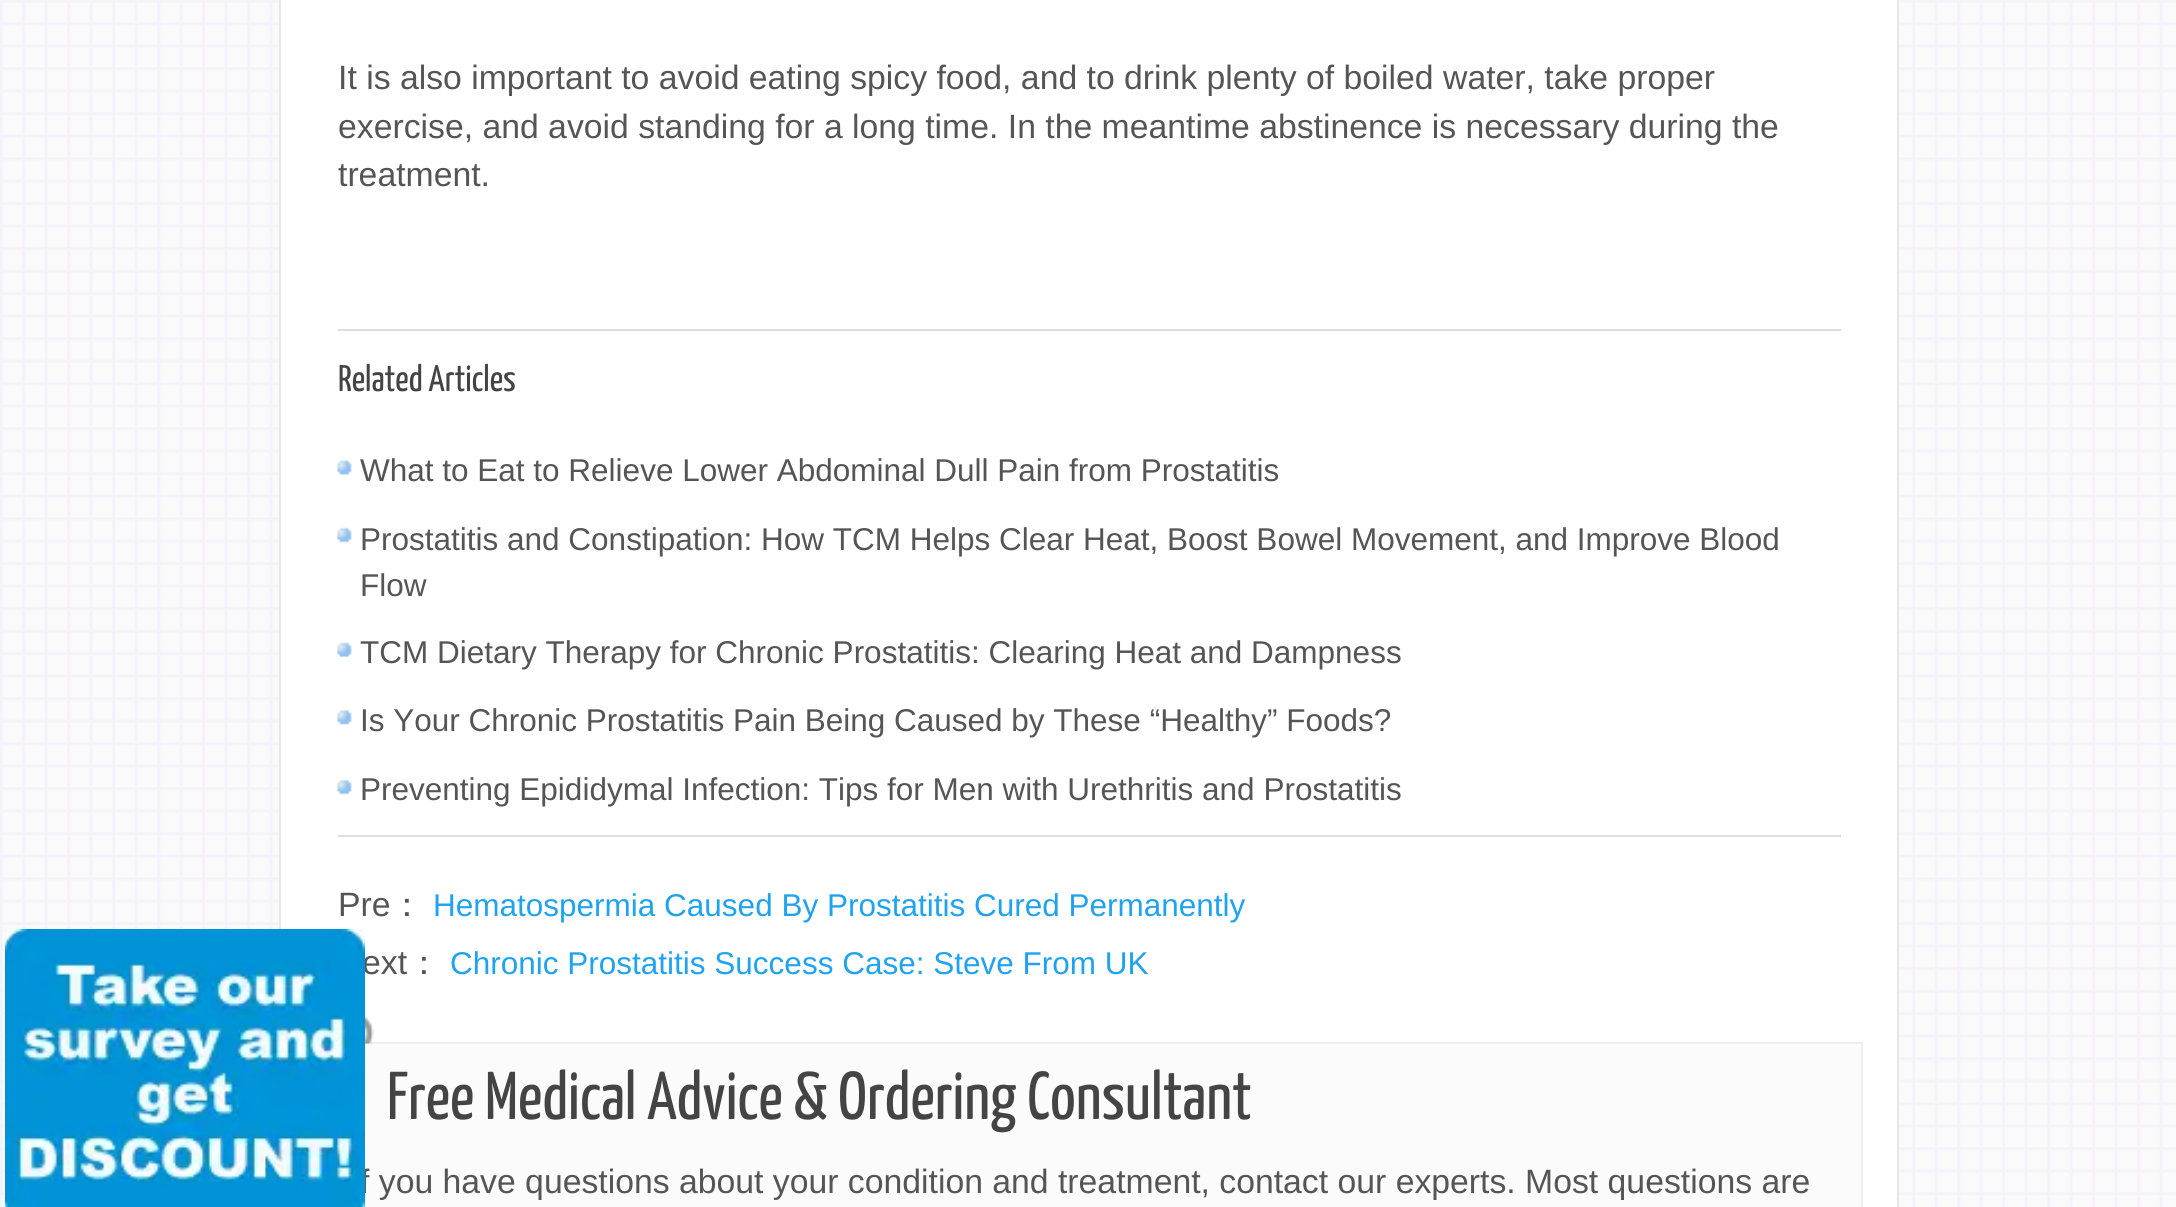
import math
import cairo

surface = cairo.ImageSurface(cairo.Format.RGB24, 2176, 1207)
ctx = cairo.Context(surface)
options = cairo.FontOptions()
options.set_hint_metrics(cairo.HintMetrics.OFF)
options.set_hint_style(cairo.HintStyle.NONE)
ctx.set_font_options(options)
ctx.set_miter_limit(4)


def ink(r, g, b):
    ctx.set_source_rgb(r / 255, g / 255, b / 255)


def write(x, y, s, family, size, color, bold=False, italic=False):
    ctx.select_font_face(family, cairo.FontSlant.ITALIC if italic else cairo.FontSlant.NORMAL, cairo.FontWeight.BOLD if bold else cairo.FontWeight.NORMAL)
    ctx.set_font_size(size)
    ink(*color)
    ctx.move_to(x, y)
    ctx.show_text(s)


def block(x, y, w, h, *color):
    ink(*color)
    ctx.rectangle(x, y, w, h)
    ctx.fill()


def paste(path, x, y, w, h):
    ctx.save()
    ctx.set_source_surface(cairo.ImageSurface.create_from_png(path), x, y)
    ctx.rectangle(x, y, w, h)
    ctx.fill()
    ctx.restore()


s1 = dict(family="Liberation Sans", size=33.75, color=(85, 85, 85))
s2 = dict(family="Yanone Kaffeesatz ExtraLight", size=37, color=(68, 68, 68))
s3 = dict(family="Liberation Sans", size=31.5, color=(85, 85, 85))
s4 = dict(family="WenQuanYi Zen Hei Medium", size=33.75, color=(85, 85, 85))
s5 = dict(family="Liberation Sans", size=31.5, color=(31, 163, 241))
s6 = dict(family="Yanone Kaffeesatz ExtraLight", size=67.5, color=(68, 68, 68))

ink(255, 255, 255)
ctx.paint()
paste("pic1.png", 0, 0, 2176, 1207)
ink(255, 255, 255)
ctx.rectangle(280, -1, 1618, 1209)
ctx.fill_preserve()
ink(231, 231, 231)
ctx.stroke()
write(362, 974, "ext", **s1)
block(365, 1044, 1496, 163, 251, 251, 251)
ctx.rectangle(316, 1043, 1546, 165)
ink(238, 238, 238)
ctx.stroke()
write(360, 1193, "f you have questions about your condition and treatment, contact our experts. Most questions are", **s1)
paste("pic2.png", 5, 929, 360, 278)
write(338, 89, "It is also important to avoid eating spicy food, and to drink plenty of boiled water, take proper", **s1)
write(338, 138, "exercise, and avoid standing for a long time. In the meantime abstinence is necessary during the", **s1)
write(338, 186, "treatment.", **s1)
block(338, 329, 1503, 2, 221, 221, 221)
write(338, 391, "Related Articles", **s2)
paste("pic3.png", 337, 460, 15, 15)
write(360, 481, "What to Eat to Relieve Lower Abdominal Dull Pain from Prostatitis", **s3)
paste("pic4.png", 337, 527, 15, 16)
write(360, 550, "Prostatitis and Constipation: How TCM Helps Clear Heat, Boost Bowel Movement, and Improve Blood", **s3)
write(360, 596, "Flow", **s3)
paste("pic5.png", 337, 642, 15, 16)
write(360, 663, "TCM Dietary Therapy for Chronic Prostatitis: Clearing Heat and Dampness", **s3)
paste("pic6.png", 337, 710, 15, 15)
write(360, 731, "Is Your Chronic Prostatitis Pain Being Caused by These “Healthy” Foods?", **s3)
paste("pic4.png", 337, 779, 15, 16)
write(360, 800, "Preventing Epididymal Infection: Tips for Men with Urethritis and Prostatitis", **s3)
block(338, 835, 1503, 2, 221, 221, 221)
write(338, 916, "Pre", **s1)
write(390, 916, "：", **s4)
write(433, 916, "Hematospermia Caused By Prostatitis Cured Permanently", **s5)
write(407, 974, "：", **s4)
write(450, 974, "Chronic Prostatitis Success Case: Steve From UK", **s5)
paste("pic7.png", 365, 1016, 9, 29)
write(387, 1119, "Free Medical Advice & Ordering Consultant", **s6)
surface.write_to_png("screenshot.png")
